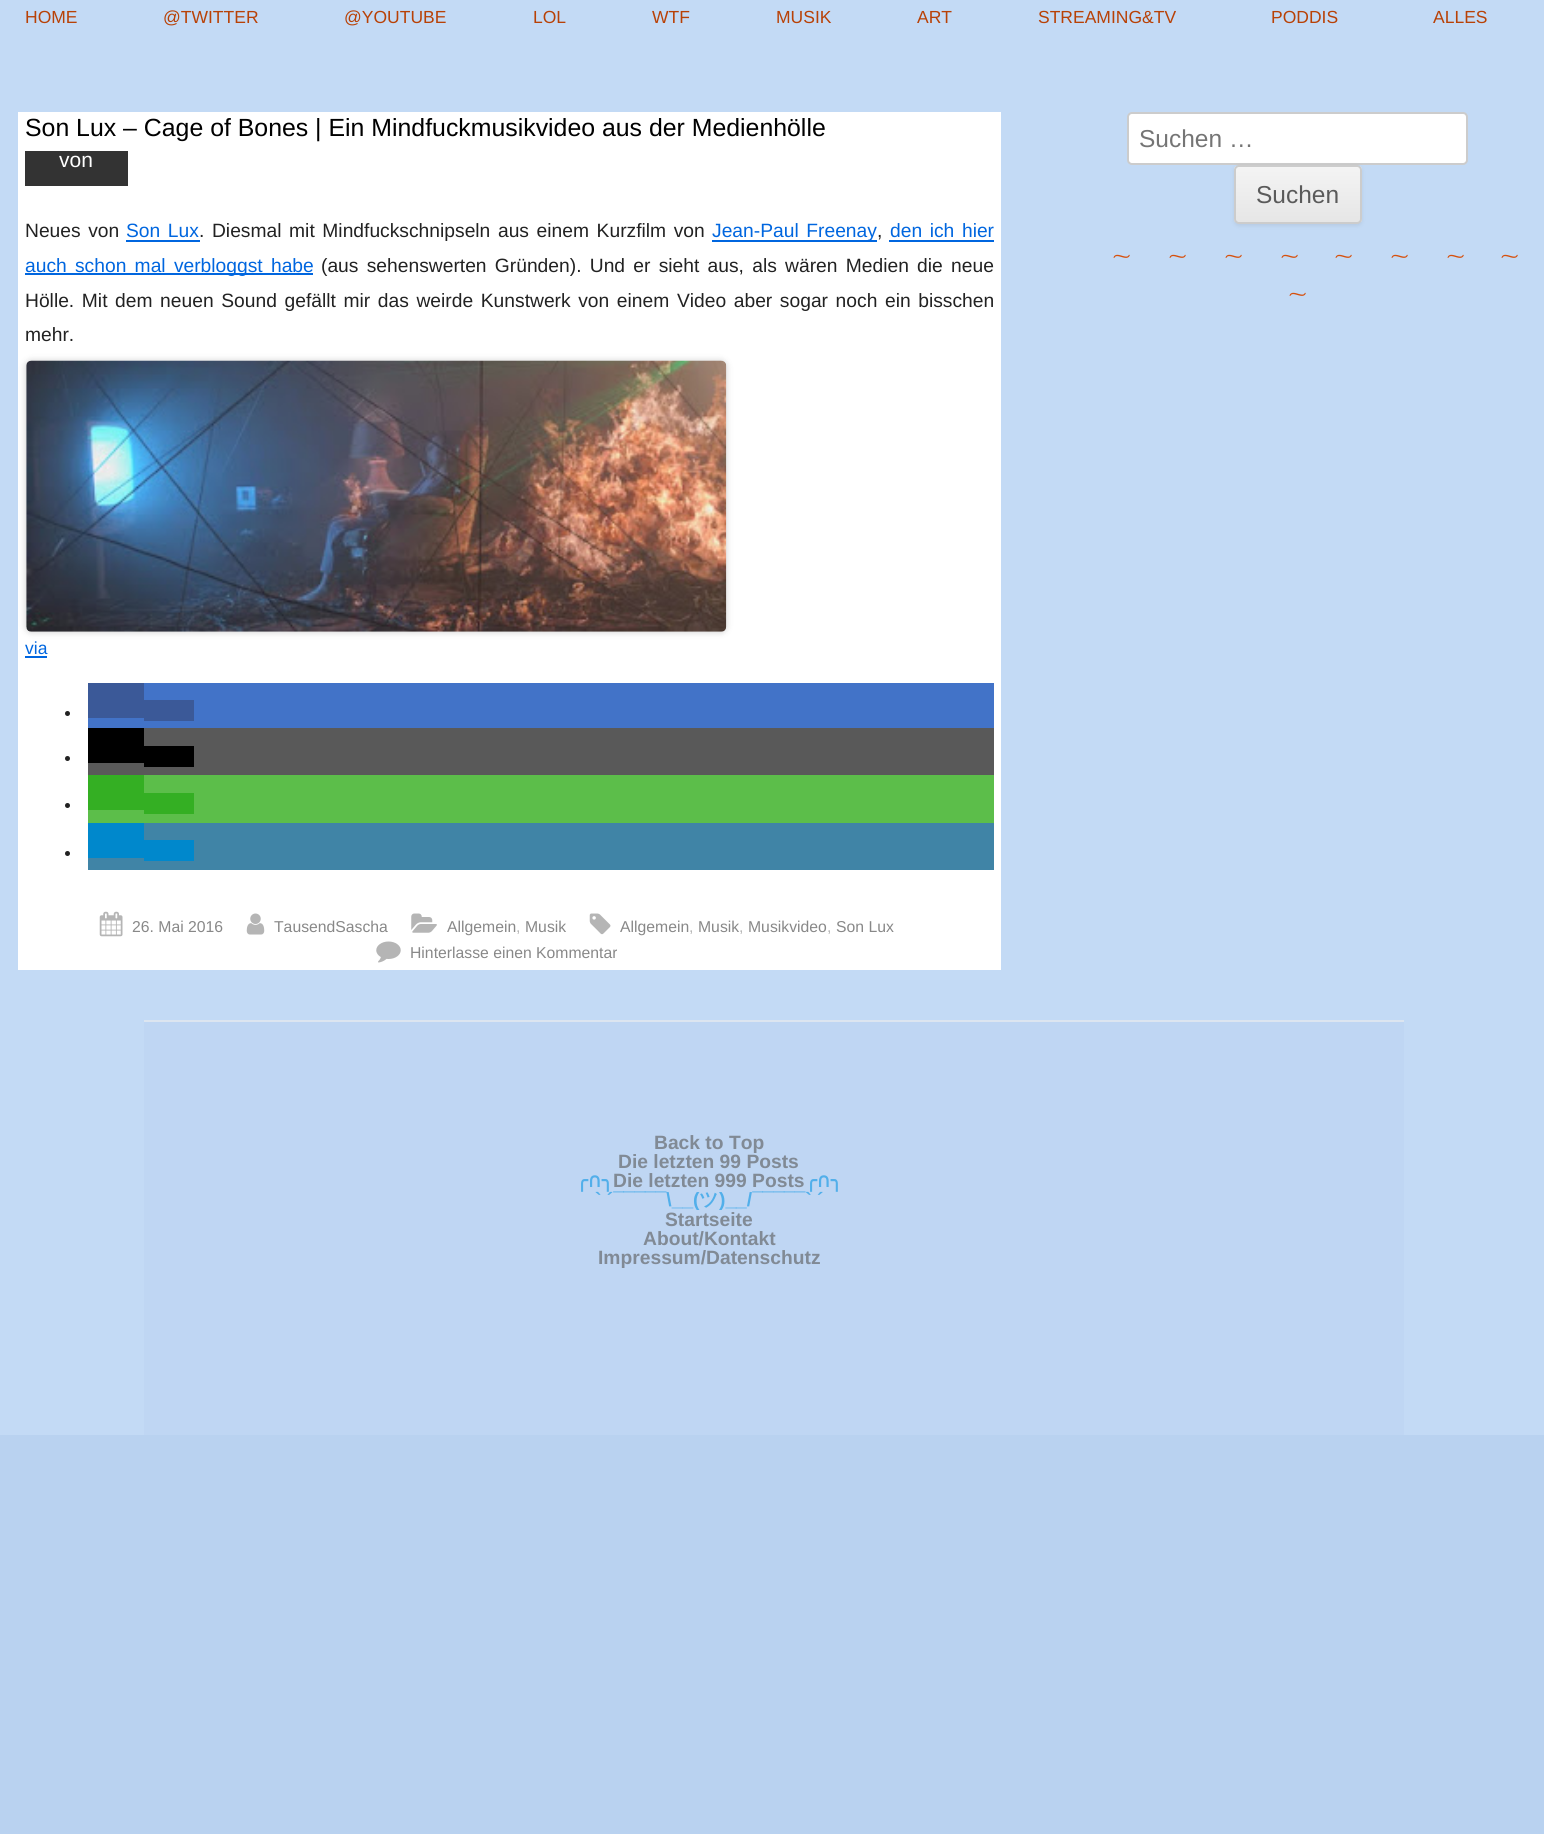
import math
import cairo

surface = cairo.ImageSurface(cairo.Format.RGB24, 1544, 1834)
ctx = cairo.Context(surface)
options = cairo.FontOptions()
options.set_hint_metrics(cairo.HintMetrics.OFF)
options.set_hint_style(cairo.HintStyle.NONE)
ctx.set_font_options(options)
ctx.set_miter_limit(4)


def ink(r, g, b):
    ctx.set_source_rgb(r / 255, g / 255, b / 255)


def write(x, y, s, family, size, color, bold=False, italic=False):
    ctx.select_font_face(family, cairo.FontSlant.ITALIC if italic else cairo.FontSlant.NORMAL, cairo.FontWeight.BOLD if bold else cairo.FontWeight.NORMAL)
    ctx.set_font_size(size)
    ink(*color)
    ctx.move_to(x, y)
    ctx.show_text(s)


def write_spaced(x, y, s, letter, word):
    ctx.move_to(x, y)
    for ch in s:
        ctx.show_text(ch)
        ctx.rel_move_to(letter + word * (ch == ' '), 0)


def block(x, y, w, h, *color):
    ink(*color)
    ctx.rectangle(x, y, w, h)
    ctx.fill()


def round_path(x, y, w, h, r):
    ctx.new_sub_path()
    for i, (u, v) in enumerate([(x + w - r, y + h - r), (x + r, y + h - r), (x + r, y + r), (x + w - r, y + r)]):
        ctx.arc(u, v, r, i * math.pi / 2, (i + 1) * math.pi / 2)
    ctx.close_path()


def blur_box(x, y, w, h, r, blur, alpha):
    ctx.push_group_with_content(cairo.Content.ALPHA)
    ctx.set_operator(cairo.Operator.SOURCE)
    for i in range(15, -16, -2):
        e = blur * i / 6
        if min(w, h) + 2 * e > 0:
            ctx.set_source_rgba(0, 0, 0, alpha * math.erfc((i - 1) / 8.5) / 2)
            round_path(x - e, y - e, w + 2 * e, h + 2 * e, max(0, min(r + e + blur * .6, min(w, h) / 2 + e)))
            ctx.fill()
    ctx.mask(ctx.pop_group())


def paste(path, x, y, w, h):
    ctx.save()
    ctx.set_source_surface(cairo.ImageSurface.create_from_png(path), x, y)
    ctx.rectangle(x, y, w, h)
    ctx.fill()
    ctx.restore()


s1 = dict(family="Liberation Sans", size=17.5, color=(184, 65, 6))
s2 = dict(family="Liberation Sans", size=24.85, color=(0, 0, 0))
s3 = dict(family="Liberation Sans", size=21, color=(255, 255, 255))
s4 = dict(family="Liberation Sans", size=19.25, color=(34, 34, 34))
s5 = dict(family="Liberation Sans", size=17.5, color=(0, 102, 223))
s6 = dict(family="Liberation Sans", size=15.75, color=(136, 136, 136))
s7 = dict(family="Liberation Sans", size=15.75, color=(181, 181, 181))
s8 = dict(family="Liberation Sans", size=24.5, color=(117, 117, 117))
s9 = dict(family="Liberation Sans", size=24.5, color=(90, 90, 90))
s10 = dict(family="Noto Sans", size=19.25, color=(214, 80, 13))
s11 = dict(family="Liberation Sans", size=19.25, color=(129, 138, 149), bold=True)
s12 = dict(family="DejaVu Sans", size=19.25, color=(82, 175, 234), bold=True)
s13 = dict(family="Liberation Sans", size=19.25, color=(82, 175, 234), bold=True)
s14 = dict(family="WenQuanYi Zen Hei", size=19.25, color=(82, 175, 234), bold=True)

ink(185, 210, 240)
ctx.paint()
block(0, 0, 1544, 1435, 195, 218, 245)
write(25, 23, "HOME", **s1)
write(163, 23, "@TWITTER", **s1)
write(344, 23, "@YOUTUBE", **s1)
write(533, 23, "LOL", **s1)
write(652, 23, "WTF", **s1)
write(776, 23, "MUSIK", **s1)
write(917, 23, "ART", **s1)
write(1038, 23, "STREAMING&TV", **s1)
write(1271, 23, "PODDIS", **s1)
write(1433, 23, "ALLES", **s1)
block(18, 112, 983, 858, 255, 255, 255)
write(25, 136, "Son Lux – Cage of Bones | Ein Mindfuckmusikvideo aus der Medienhölle", **s2)
block(25, 151, 103, 35, 51, 51, 51)
write(59, 167, "von", **s3)
ctx.set_font_size(19.25)
ink(34, 34, 34)
write_spaced(25, 237, "Neues von", 0, 2.25)
ink(0, 102, 223)
write_spaced(126, 237, "Son Lux", 0, 2.25)
block(126, 240, 74, 2, 0, 102, 223)
ink(34, 34, 34)
write_spaced(199, 237, ". Diesmal mit Mindfuckschnipseln aus einem Kurzfilm von", 0, 2.25)
block(712, 240, 165, 2, 0, 102, 223)
write_spaced(712, 237, "Jean-Paul Freenay", 0, 2.25)
write(877, 237, ",", **s4)
ink(0, 102, 223)
write_spaced(890, 237, "den ich hier", 0, 2.25)
block(889, 240, 105, 2, 0, 102, 223)
block(25, 273, 288, 2, 0, 102, 223)
write_spaced(25, 272, "auch schon mal verbloggst habe", 0, 2.9)
ink(34, 34, 34)
write_spaced(321, 272, "(aus sehenswerten Gründen). Und er sieht aus, als wären Medien die neue", 0, 2.9)
write_spaced(25, 307, "Hölle. Mit dem neuen Sound gefällt mir das weirde Kunstwerk von einem Video aber sogar noch ein bisschen", 0, 2.25)
write(25, 341, "mehr.", **s4)
ink(0, 0, 0)
blur_box(26, 361, 700, 271, 5, 3.5, 0.2)
paste("pic1.png", 26, 360, 701, 272)
write(25, 654, "via", **s5)
block(25, 656, 22, 2, 0, 102, 223)
block(88, 683, 906, 45, 66, 115, 200)
ink(34, 34, 34)
ctx.new_path()
ctx.arc(67.5, 713.5, 2.5, 0, 2 * math.pi)
ctx.fill()
block(88, 683, 56, 35, 59, 89, 152)
block(144, 700, 50, 21, 59, 89, 152)
block(88, 728, 906, 47, 89, 89, 89)
ink(34, 34, 34)
ctx.arc(67.5, 758.5, 2.5, 0, 2 * math.pi)
ctx.fill()
block(88, 728, 56, 35, 0, 0, 0)
block(144, 746, 50, 21, 0, 0, 0)
block(88, 775, 906, 48, 92, 190, 74)
ink(34, 34, 34)
ctx.arc(67.5, 805.5, 2.5, 0, 2 * math.pi)
ctx.fill()
block(88, 775, 56, 35, 52, 175, 35)
block(144, 793, 50, 21, 52, 175, 35)
block(88, 823, 906, 47, 64, 132, 166)
ink(34, 34, 34)
ctx.arc(67.5, 853.5, 2.5, 0, 2 * math.pi)
ctx.fill()
block(88, 823, 56, 35, 0, 136, 204)
block(144, 840, 50, 21, 0, 136, 204)
paste("pic2.png", 99, 911, 24, 26)
write(132, 932, "26. Mai 2016", **s6)
paste("pic3.png", 246, 913, 19, 22)
write(274, 932, "TausendSascha", **s6)
paste("pic4.png", 411, 913, 26, 20)
write(447, 932, "Allgemein", **s6)
write(516, 932, ",", **s7)
write(525, 932, "Musik", **s6)
paste("pic5.png", 589, 913, 22, 22)
write(620, 932, "Allgemein", **s6)
write(689, 932, ",", **s7)
write(698, 932, "Musik", **s6)
write(739, 932, ",", **s7)
write(748, 932, "Musikvideo", **s6)
write(827, 932, ",", **s7)
write(836, 932, "Son Lux", **s6)
paste("pic6.png", 376, 941, 25, 22)
write(410, 958, "Hinterlasse einen Kommentar", **s6)
ink(255, 255, 255)
round_path(1128, 113, 339, 51, 4)
ctx.fill_preserve()
ink(204, 204, 204)
ctx.stroke()
write(1139, 147, "Suchen …", **s8)
ink(64, 64, 64)
blur_box(1234, 166, 128, 60, 5, 2, 0.1)
ctx.save()
round_path(1234, 165, 128, 59, 5)
ctx.clip()
gradient = cairo.LinearGradient(1298, 166, 1298, 222)
gradient.add_color_stop_rgba(0, 0.957, 0.957, 0.957, 1)
gradient.add_color_stop_rgba(1, 0.902, 0.902, 0.902, 1)
ctx.set_source(gradient)
ctx.rectangle(1234, 166, 128, 56)
ctx.fill()
ctx.restore()
round_path(1235, 166, 126, 57, 4)
ink(204, 204, 204)
ctx.stroke()
write(1256, 203, "Suchen", **s9)
write(1112, 262, "⁓", **s10)
write(1168, 262, "⁓", **s10)
write(1224, 262, "⁓", **s10)
write(1280, 262, "⁓", **s10)
write(1334, 262, "⁓", **s10)
write(1390, 262, "⁓", **s10)
write(1446, 262, "⁓", **s10)
write(1500, 262, "⁓", **s10)
write(1288, 300, "⁓", **s10)
block(144, 1022, 1260, 413, 191, 214, 243)
block(144, 1020, 1260, 2, 220, 229, 240)
write(654, 1149, "Back to Top", **s11)
write(618, 1168, "Die letzten 99 Posts", **s11)
write(576, 1187, "╭∩╮", **s12)
write(613, 1187, "Die letzten 999 Posts", **s11)
write(805, 1187, "╭∩╮", **s12)
write(595, 1206, "` ´¯¯¯¯¯\\__(", **s13)
write(699, 1206, "ツ", **s14)
write(719, 1206, ")__/¯¯¯¯¯` ´", **s13)
write(665, 1226, "Startseite", **s11)
write(643, 1245, "About/Kontakt", **s11)
write(598, 1264, "Impressum/Datenschutz", **s11)
surface.write_to_png("screenshot.png")
